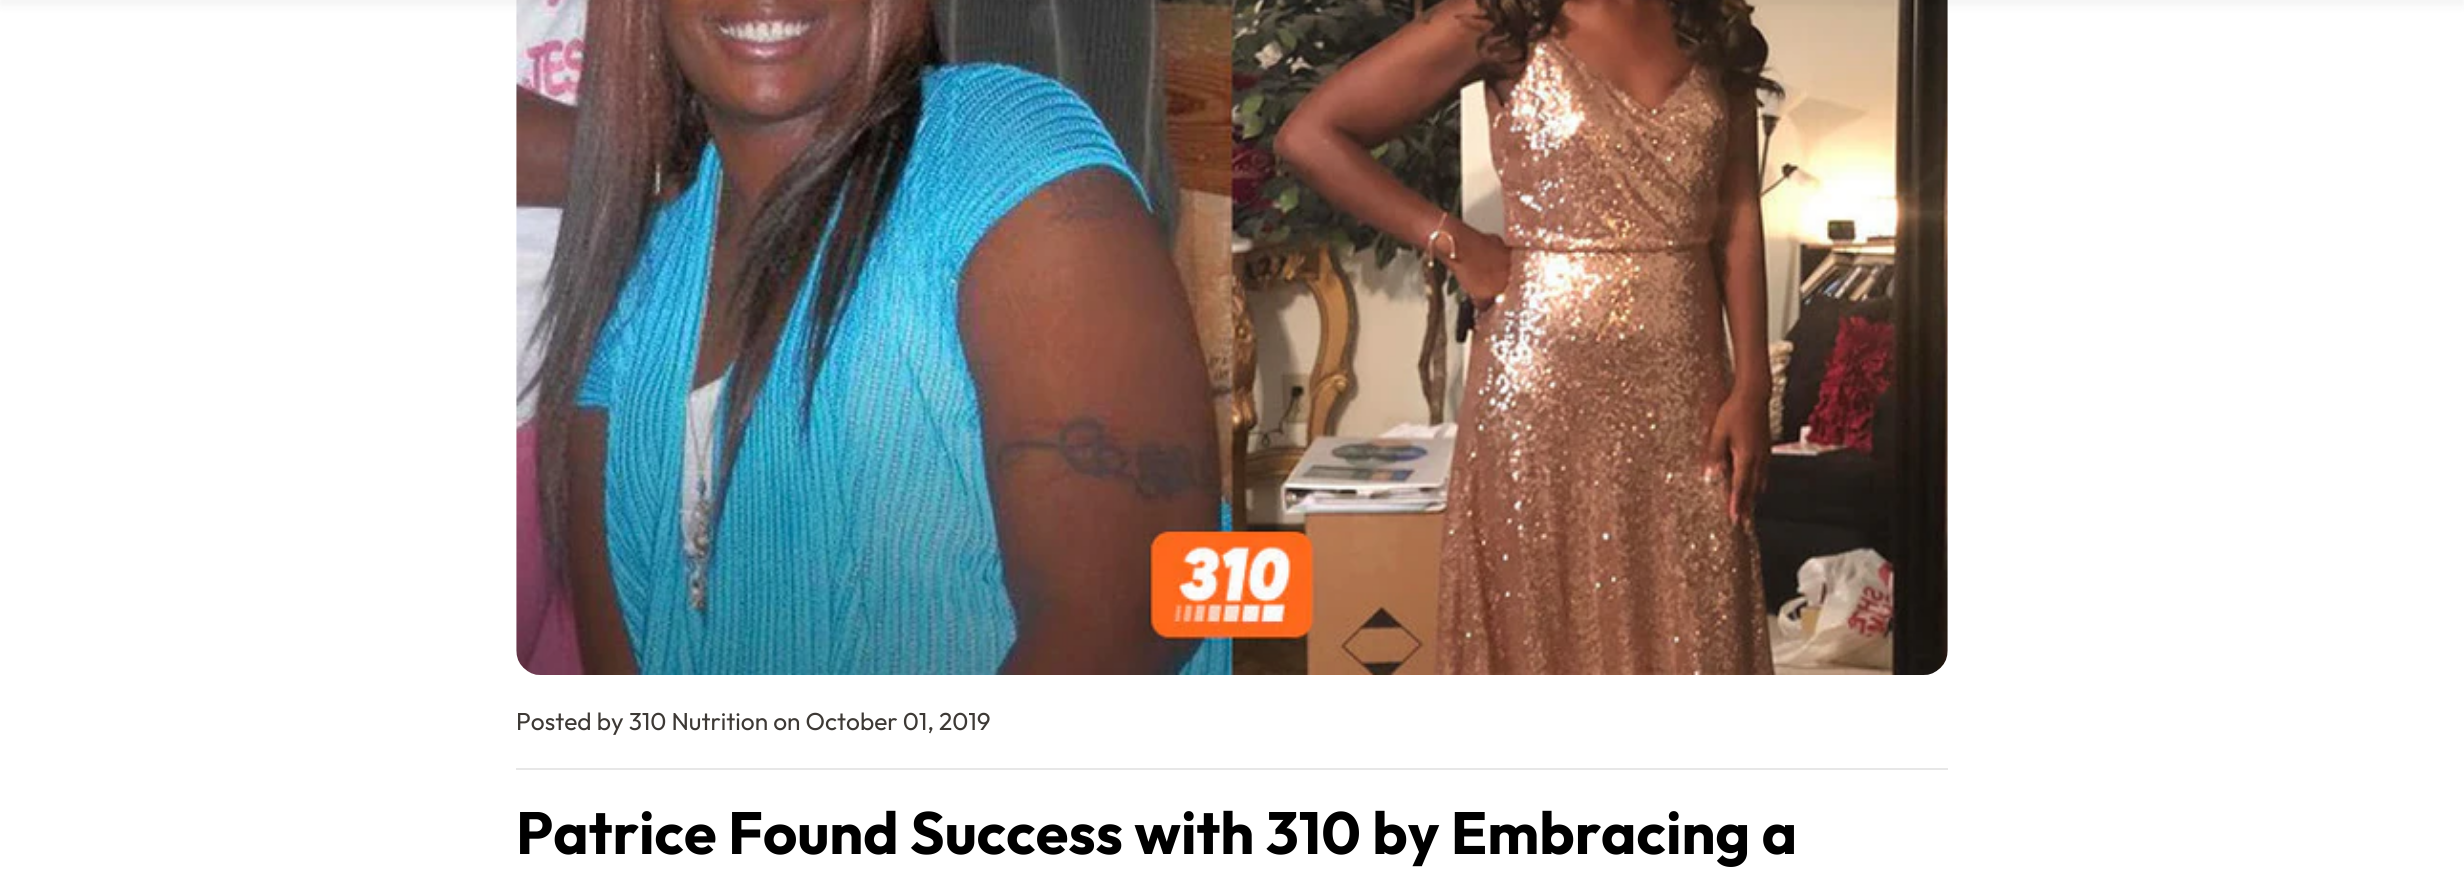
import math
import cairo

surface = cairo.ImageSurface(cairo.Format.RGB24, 2464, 887)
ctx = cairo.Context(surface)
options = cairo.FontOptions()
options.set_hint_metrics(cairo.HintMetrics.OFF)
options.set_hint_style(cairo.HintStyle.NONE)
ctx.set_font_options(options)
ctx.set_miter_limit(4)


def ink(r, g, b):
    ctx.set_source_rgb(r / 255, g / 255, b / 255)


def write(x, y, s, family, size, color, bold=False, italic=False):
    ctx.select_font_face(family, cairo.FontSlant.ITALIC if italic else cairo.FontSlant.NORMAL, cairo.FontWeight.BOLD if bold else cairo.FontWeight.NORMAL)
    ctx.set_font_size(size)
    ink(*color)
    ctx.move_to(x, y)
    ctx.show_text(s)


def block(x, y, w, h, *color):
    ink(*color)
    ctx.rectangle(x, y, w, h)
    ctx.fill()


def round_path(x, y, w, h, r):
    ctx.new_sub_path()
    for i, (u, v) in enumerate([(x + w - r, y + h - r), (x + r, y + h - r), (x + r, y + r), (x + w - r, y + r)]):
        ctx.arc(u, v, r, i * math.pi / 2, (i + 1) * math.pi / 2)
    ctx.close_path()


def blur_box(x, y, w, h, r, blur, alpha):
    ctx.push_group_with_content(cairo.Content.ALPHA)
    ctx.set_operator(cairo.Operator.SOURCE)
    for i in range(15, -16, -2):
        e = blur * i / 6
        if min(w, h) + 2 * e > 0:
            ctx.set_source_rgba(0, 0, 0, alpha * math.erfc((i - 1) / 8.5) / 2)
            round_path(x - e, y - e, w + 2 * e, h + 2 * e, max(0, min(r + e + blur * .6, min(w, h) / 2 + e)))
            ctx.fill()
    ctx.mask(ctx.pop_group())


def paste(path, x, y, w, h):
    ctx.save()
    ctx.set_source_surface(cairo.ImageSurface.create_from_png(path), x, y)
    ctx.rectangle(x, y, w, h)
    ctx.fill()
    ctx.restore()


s1 = dict(family="Outfit", size=24.5, color=(61, 57, 53))
s2 = dict(family="Outfit", size=59.5, color=(0, 0, 0), bold=True)

ink(255, 255, 255)
ctx.paint()
paste("pic1.png", 516, 0, 1432, 675)
ink(0, 0, 0)
blur_box(0, -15, 2464, 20, 0, 5, 0.05)
block(516, 768, 1432, 2, 231, 231, 231)
write(516, 730, "Posted by 310 Nutrition on October 01, 2019", **s1)
write(516, 854, "Patrice Found Success with 310 by Embracing a", **s2)
surface.write_to_png("screenshot.png")
